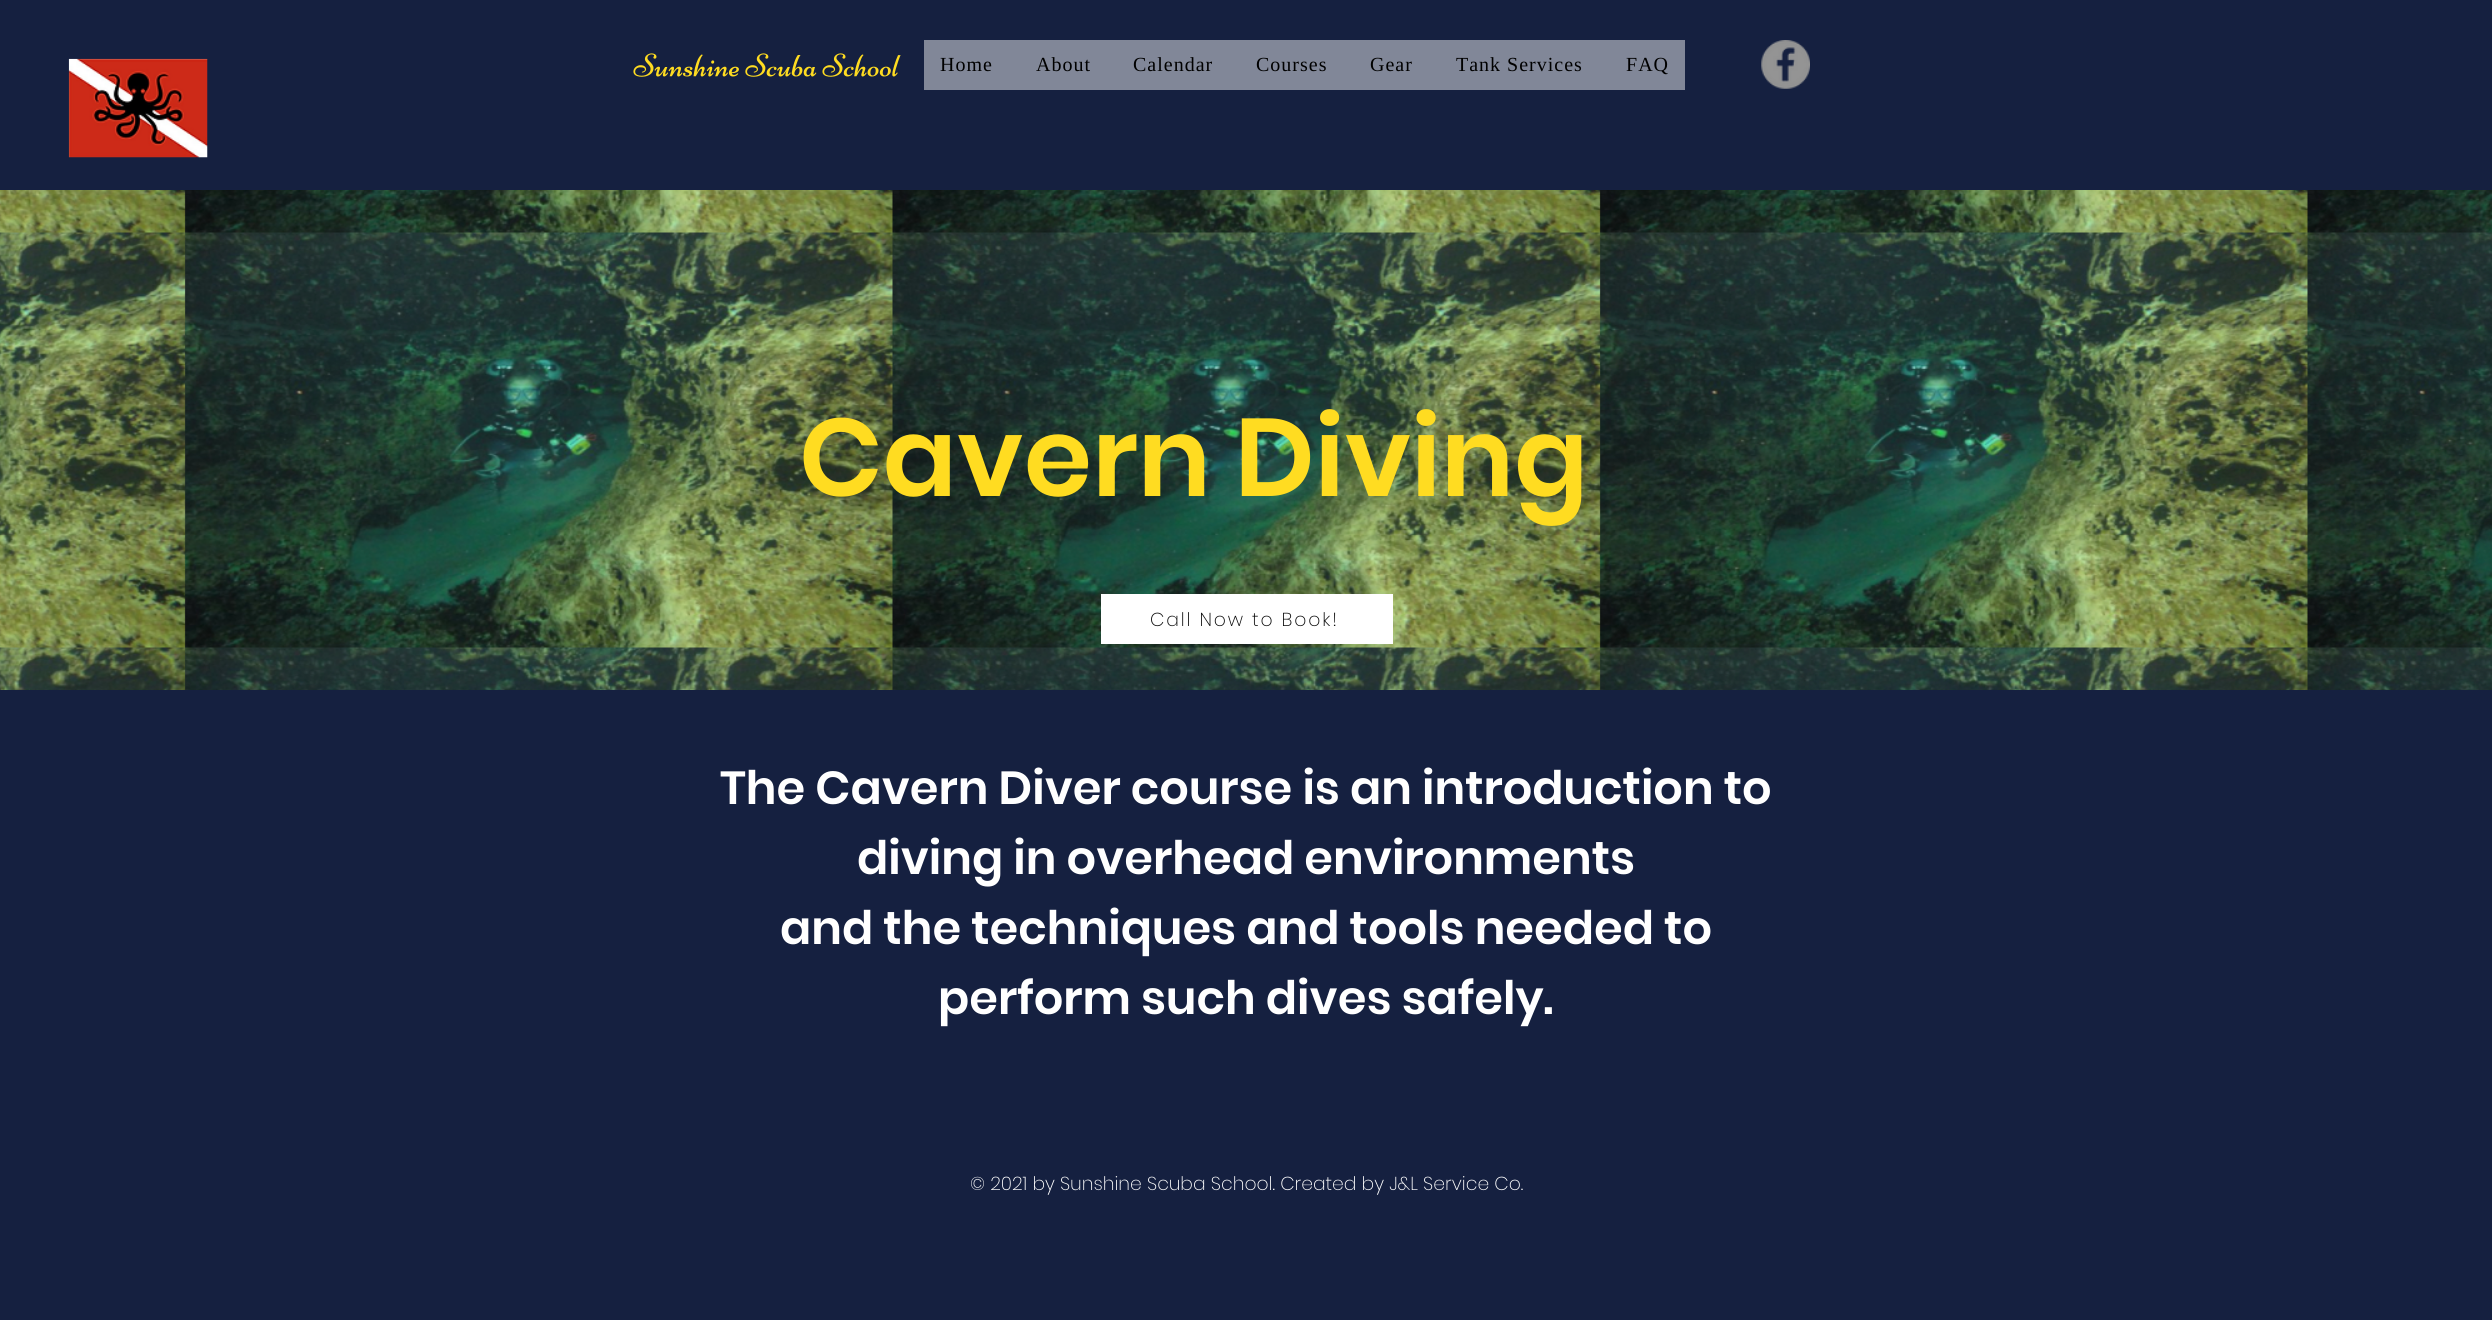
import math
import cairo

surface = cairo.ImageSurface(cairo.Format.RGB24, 2492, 1320)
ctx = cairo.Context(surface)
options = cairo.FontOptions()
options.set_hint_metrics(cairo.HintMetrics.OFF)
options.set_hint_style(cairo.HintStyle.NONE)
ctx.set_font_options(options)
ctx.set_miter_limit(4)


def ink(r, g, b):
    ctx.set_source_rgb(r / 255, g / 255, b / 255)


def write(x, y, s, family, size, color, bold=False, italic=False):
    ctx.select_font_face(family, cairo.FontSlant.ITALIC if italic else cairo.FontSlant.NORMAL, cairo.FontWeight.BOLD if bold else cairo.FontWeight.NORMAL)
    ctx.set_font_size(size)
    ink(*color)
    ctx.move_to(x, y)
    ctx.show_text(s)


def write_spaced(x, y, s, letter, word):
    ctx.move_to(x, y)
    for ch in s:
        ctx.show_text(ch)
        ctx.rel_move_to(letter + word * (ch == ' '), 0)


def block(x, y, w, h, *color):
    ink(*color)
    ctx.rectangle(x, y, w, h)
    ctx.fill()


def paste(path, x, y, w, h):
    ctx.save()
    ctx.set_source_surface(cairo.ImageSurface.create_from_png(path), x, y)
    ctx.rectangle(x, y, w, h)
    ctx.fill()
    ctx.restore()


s1 = dict(family="Poppins SemiBold", size=110, color=(255, 220, 33))
s2 = dict(family="Poppins SemiBold", size=46.25, color=(255, 255, 255))
s3 = dict(family="Poppins ExtraLight", size=18.75, color=(255, 255, 255))

ink(21, 32, 64)
ctx.paint()
paste("pic1.png", 68, 58, 140, 100)
paste("pic2.png", 633, 53, 268, 24)
block(924, 40, 761, 50, 129, 135, 152)
ctx.select_font_face("Liberation Serif")
ctx.set_font_size(20)
ink(0, 0, 0)
write_spaced(940, 71, "Home", 1, 0)
write_spaced(1036, 71, "About", 1, 0)
write_spaced(1133, 71, "Calendar", 1, 0)
write_spaced(1256, 71, "Courses", 1, 0)
write_spaced(1370, 71, "Gear", 1, 0)
write_spaced(1456, 71, "Tank Services", 1, 0)
write_spaced(1626, 71, "FAQ", 1, 0)
paste("pic3.png", 1761, 40, 49, 49)
paste("pic4.png", 0, 190, 2492, 500)
write(799, 496, "Cavern Diving", **s1)
block(1101, 594, 292, 50, 255, 255, 255)
ctx.select_font_face("Poppins ExtraLight")
ctx.set_font_size(18.75)
ink(8, 8, 8)
write_spaced(1150, 626, "Call Now to Book!", 1.9, 0)
write(720, 804, "The Cavern Diver course is an introduction to", **s2)
write(857, 874, "diving in overhead environments", **s2)
write(780, 944, "and the techniques and tools needed to", **s2)
write(938, 1014, "perform such dives safely.", **s2)
write(970, 1190, "© 2021 by Sunshine Scuba School. Created by J&L Service Co.", **s3)
surface.write_to_png("screenshot.png")
